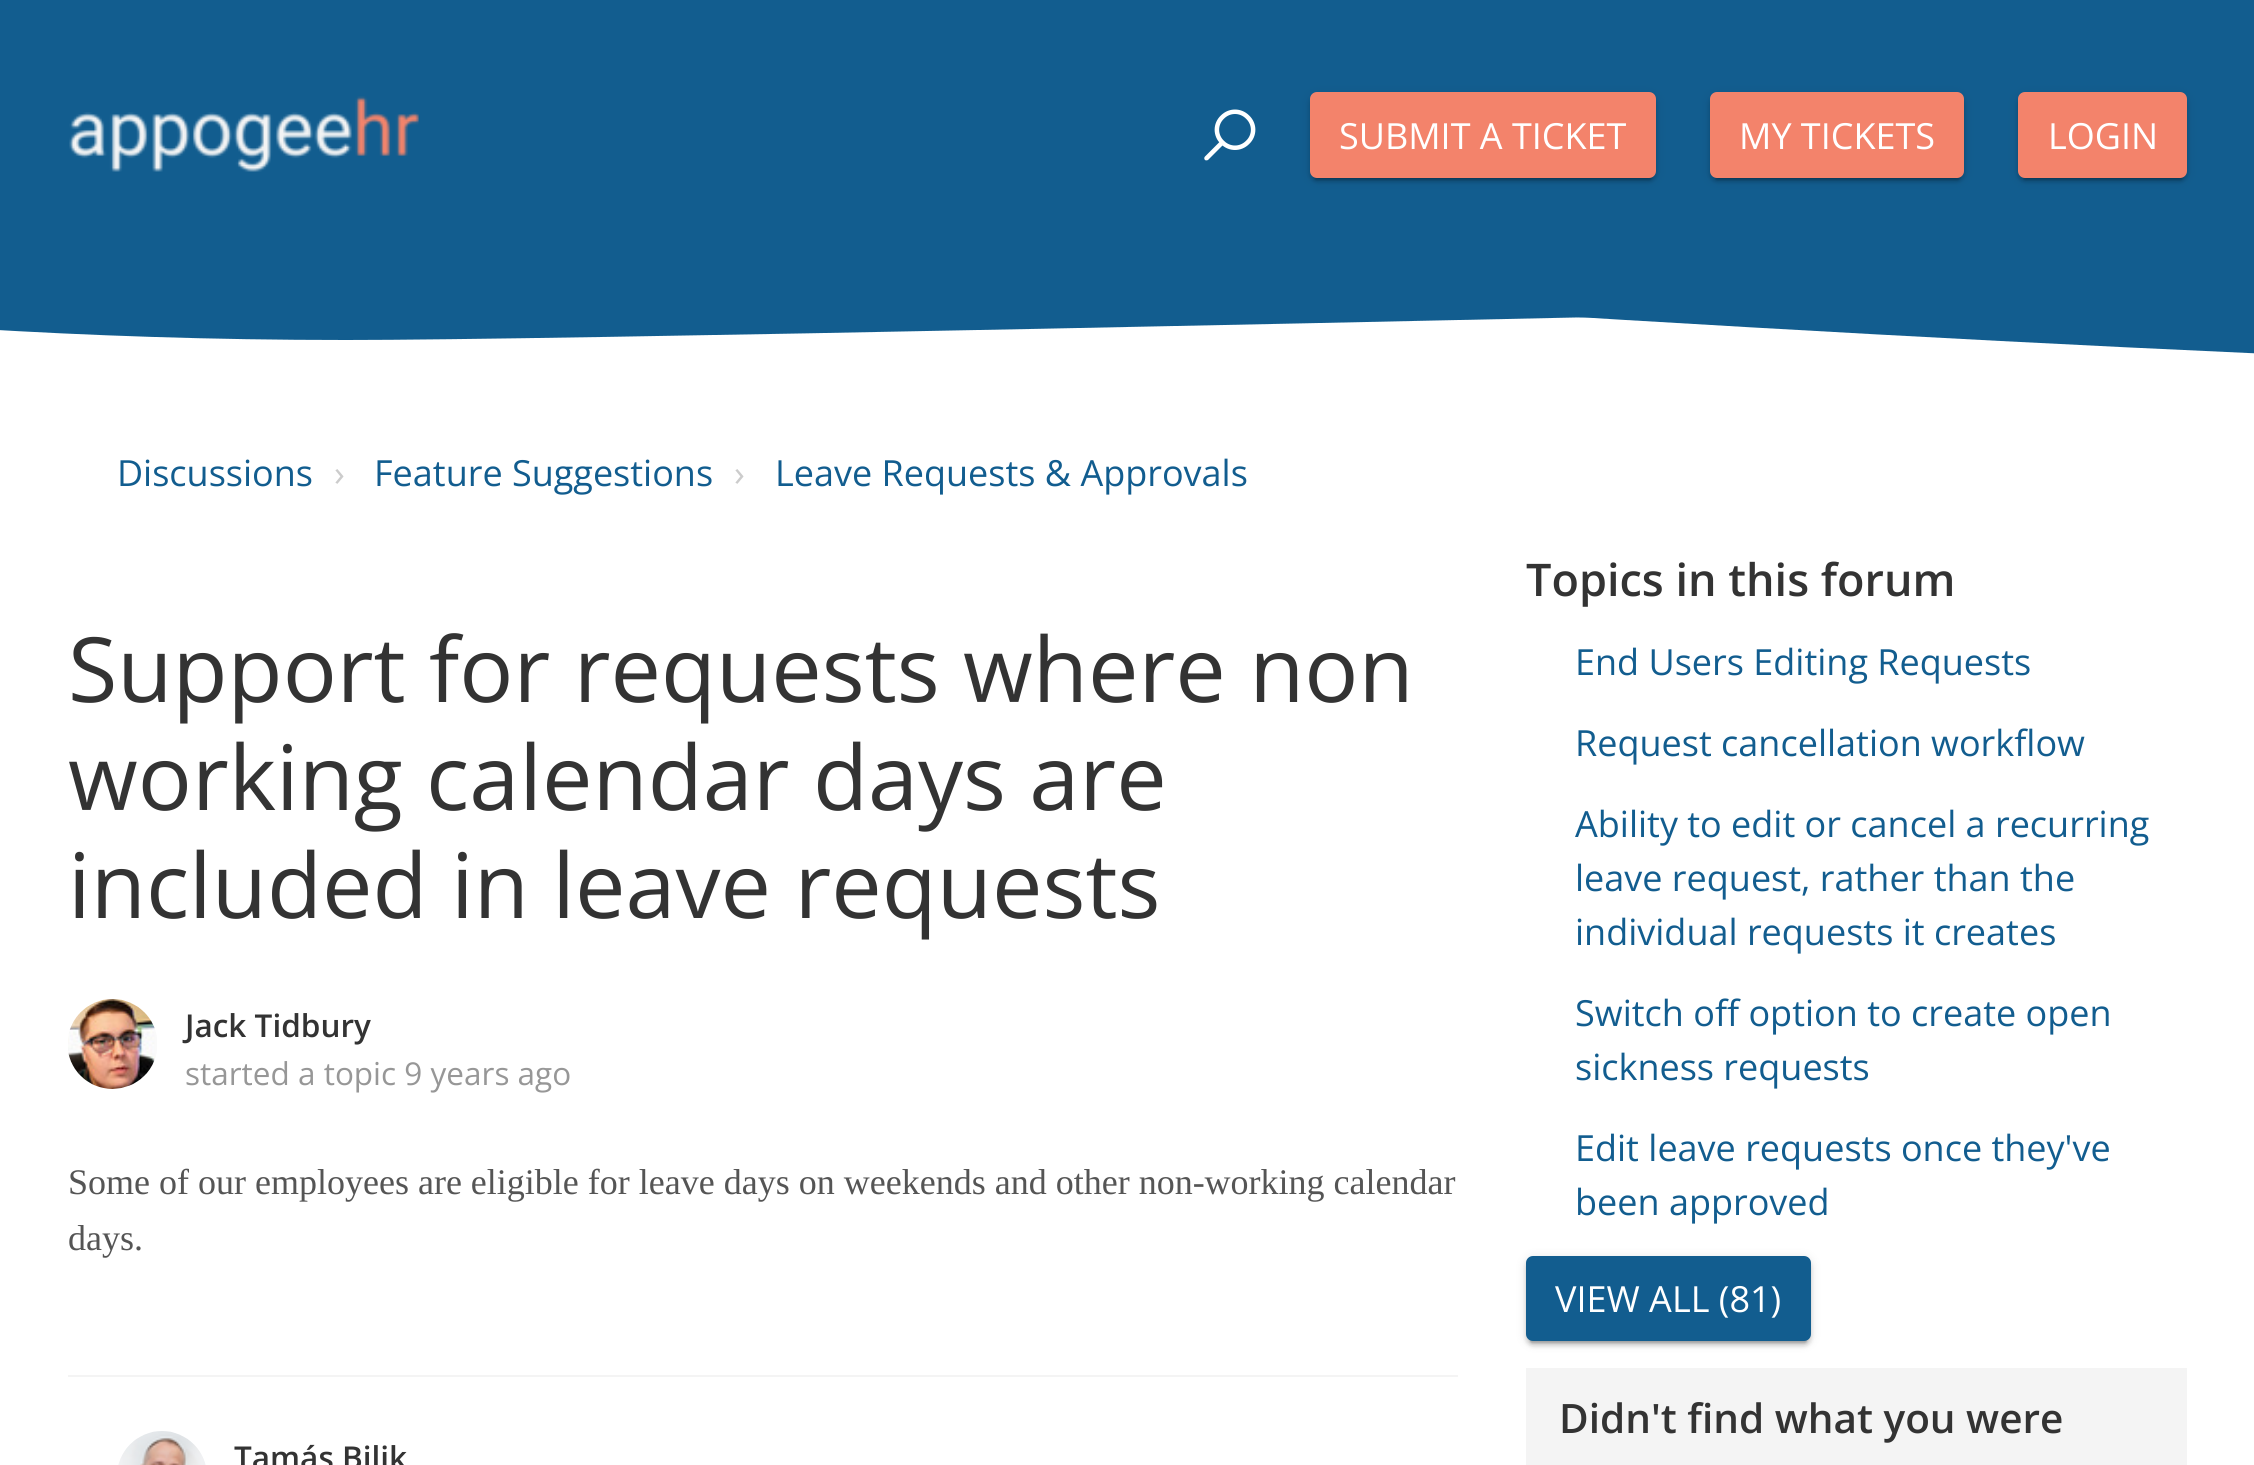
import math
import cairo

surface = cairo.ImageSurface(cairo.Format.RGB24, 2254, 1465)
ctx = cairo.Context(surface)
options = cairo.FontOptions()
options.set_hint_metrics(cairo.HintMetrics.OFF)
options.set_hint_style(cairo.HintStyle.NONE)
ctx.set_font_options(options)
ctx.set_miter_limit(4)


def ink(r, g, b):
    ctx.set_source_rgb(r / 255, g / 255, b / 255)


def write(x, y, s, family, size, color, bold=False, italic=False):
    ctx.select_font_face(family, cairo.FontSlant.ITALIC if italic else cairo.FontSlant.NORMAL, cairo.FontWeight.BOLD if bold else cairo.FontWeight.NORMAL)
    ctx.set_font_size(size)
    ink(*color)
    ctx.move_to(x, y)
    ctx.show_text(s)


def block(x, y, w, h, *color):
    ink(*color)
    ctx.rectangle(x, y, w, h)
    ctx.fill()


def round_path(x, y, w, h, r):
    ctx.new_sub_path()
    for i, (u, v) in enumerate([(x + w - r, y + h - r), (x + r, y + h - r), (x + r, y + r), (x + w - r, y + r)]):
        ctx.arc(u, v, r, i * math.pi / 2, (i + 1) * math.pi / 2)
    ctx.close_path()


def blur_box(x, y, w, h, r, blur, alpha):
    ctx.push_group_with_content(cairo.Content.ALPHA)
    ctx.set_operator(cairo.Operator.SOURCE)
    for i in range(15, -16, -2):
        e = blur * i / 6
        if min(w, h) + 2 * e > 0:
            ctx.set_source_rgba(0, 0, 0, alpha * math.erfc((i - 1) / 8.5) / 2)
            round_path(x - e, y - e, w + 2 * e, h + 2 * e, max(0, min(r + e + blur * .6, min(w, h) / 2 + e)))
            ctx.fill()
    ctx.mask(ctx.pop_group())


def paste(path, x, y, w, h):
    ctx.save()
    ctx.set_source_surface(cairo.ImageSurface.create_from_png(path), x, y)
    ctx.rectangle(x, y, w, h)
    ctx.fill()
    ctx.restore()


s1 = dict(family="Open Sans", size=36, color=(255, 255, 255))
s2 = dict(family="Open Sans", size=36, color=(18, 93, 143))
s3 = dict(family="Open Sans", size=36, color=(204, 204, 204))
s4 = dict(family="Open Sans", size=90, color=(51, 51, 51))
s5 = dict(family="Open Sans SemiBold", size=31.5, color=(51, 51, 51))
s6 = dict(family="Open Sans", size=31.5, color=(151, 151, 151))
s7 = dict(family="Liberation Serif", size=36, color=(85, 85, 85))
s8 = dict(family="Open Sans SemiBold", size=45, color=(51, 51, 51))
s9 = dict(family="Open Sans SemiBold", size=40.5, color=(51, 51, 51))

ink(255, 255, 255)
ctx.paint()
block(0, 0, 2254, 268, 18, 93, 143)
paste("pic1.png", 69, 96, 350, 76)
ctx.new_path()
ctx.move_to(1247.5, 117)
ctx.curve_to(1255, 124, 1255, 135.5, 1247.5, 142.5)
ctx.curve_to(1240.5, 149.5, 1229.5, 149.5, 1222.5, 142.5)
ctx.curve_to(1215, 135.5, 1215, 124, 1222.5, 117)
ctx.curve_to(1229.5, 110, 1240.5, 110, 1247.5, 117)
ctx.close_path()
ink(255, 255, 255)
ctx.set_line_width(4.5)
ctx.stroke()
ctx.new_path()
ctx.move_to(1220.5, 141)
ctx.line_to(1224, 144)
ctx.line_to(1208, 160)
ctx.curve_to(1207, 160.5, 1205.5, 160.5, 1205, 160)
ctx.curve_to(1204, 159, 1204, 157.5, 1205, 156.5)
ctx.close_path()
ctx.fill()
ink(0, 0, 0)
blur_box(1310, 95, 346, 85, 7, 5.5, 0.12)
blur_box(1314, 104, 338, 76, 2, 1, 0.2)
blur_box(1310, 97, 346, 85, 7, 2, 0.14)
ink(243, 131, 107)
round_path(1310, 92, 346, 86, 7)
ctx.fill()
write(1339, 149, "SUBMIT A TICKET", **s1)
ink(0, 0, 0)
blur_box(1710, 95, 254, 85, 7, 5.5, 0.12)
blur_box(1715, 104, 245, 76, 2, 1, 0.2)
blur_box(1710, 97, 254, 85, 7, 2, 0.14)
ink(243, 131, 107)
round_path(1710, 92, 254, 86, 7)
ctx.fill()
write(1739, 149, "MY TICKETS", **s1)
ink(0, 0, 0)
blur_box(2018, 95, 169, 85, 7, 5.5, 0.12)
blur_box(2023, 104, 160, 76, 2, 1, 0.2)
blur_box(2018, 97, 169, 85, 7, 2, 0.14)
ink(243, 131, 107)
round_path(2018, 92, 169, 86, 7)
ctx.fill()
write(2048, 149, "LOGIN", **s1)
ink(18, 93, 143)
ctx.new_path()
ctx.move_to(346, 340)
ctx.curve_to(749, 340, 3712, 268, 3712, 268)
ctx.line_to(-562, 268)
ctx.curve_to(-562, 268, -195, 340, 346, 340)
ctx.close_path()
ctx.fill()
ctx.save()
ctx.rectangle(0, 268, 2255, 106)
ctx.clip()
ctx.new_path()
ctx.move_to(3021, 374)
ctx.curve_to(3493, 374, 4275, 203, 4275, 203)
ctx.line_to(0, 203)
ctx.curve_to(0, 203, 2017, 374, 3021, 374)
ctx.close_path()
ctx.fill()
ctx.restore()
write(117, 486, "Discussions", **s2)
write(334, 486, "›", **s3)
write(374, 486, "Feature Suggestions", **s2)
write(734, 486, "›", **s3)
write(775, 486, "Leave Requests & Approvals", **s2)
block(68, 1375, 1390, 2, 244, 244, 244)
write(68, 702, "Support for requests where non", **s4)
write(68, 810, "working calendar days are", **s4)
write(68, 918, "included in leave requests", **s4)
paste("pic2.png", 68, 999, 89, 90)
write(185, 1037, "Jack Tidbury", **s5)
write(185, 1085, "started a topic 9 years ago", **s6)
write(68, 1194, "Some of our employees are eligible for leave days on weekends and other non-working calendar", **s7)
write(68, 1250, "days.", **s7)
paste("pic3.png", 118, 1431, 88, 34)
write(234, 1469, "Tamás Bilik", **s5)
write(1526, 596, "Topics in this forum", **s8)
write(1575, 675, "End Users Editing Requests", **s2)
write(1575, 756, "Request cancellation workflow", **s2)
write(1575, 837, "Ability to edit or cancel a recurring", **s2)
write(1575, 891, "leave request, rather than the", **s2)
write(1575, 945, "individual requests it creates", **s2)
write(1575, 1026, "Switch off option to create open", **s2)
write(1575, 1080, "sickness requests", **s2)
write(1575, 1161, "Edit leave requests once they've", **s2)
write(1575, 1215, "been approved", **s2)
ink(0, 0, 0)
blur_box(1526, 1258, 285, 85, 7, 5.5, 0.12)
blur_box(1530, 1267, 277, 76, 2, 1, 0.2)
blur_box(1526, 1260, 285, 86, 7, 2, 0.14)
ink(18, 93, 143)
round_path(1526, 1256, 285, 85, 7)
ctx.fill()
write(1555, 1312, "VIEW ALL (81)", **s1)
block(1526, 1368, 661, 97, 244, 244, 244)
write(1559, 1433, "Didn't find what you were", **s9)
surface.write_to_png("screenshot.png")
